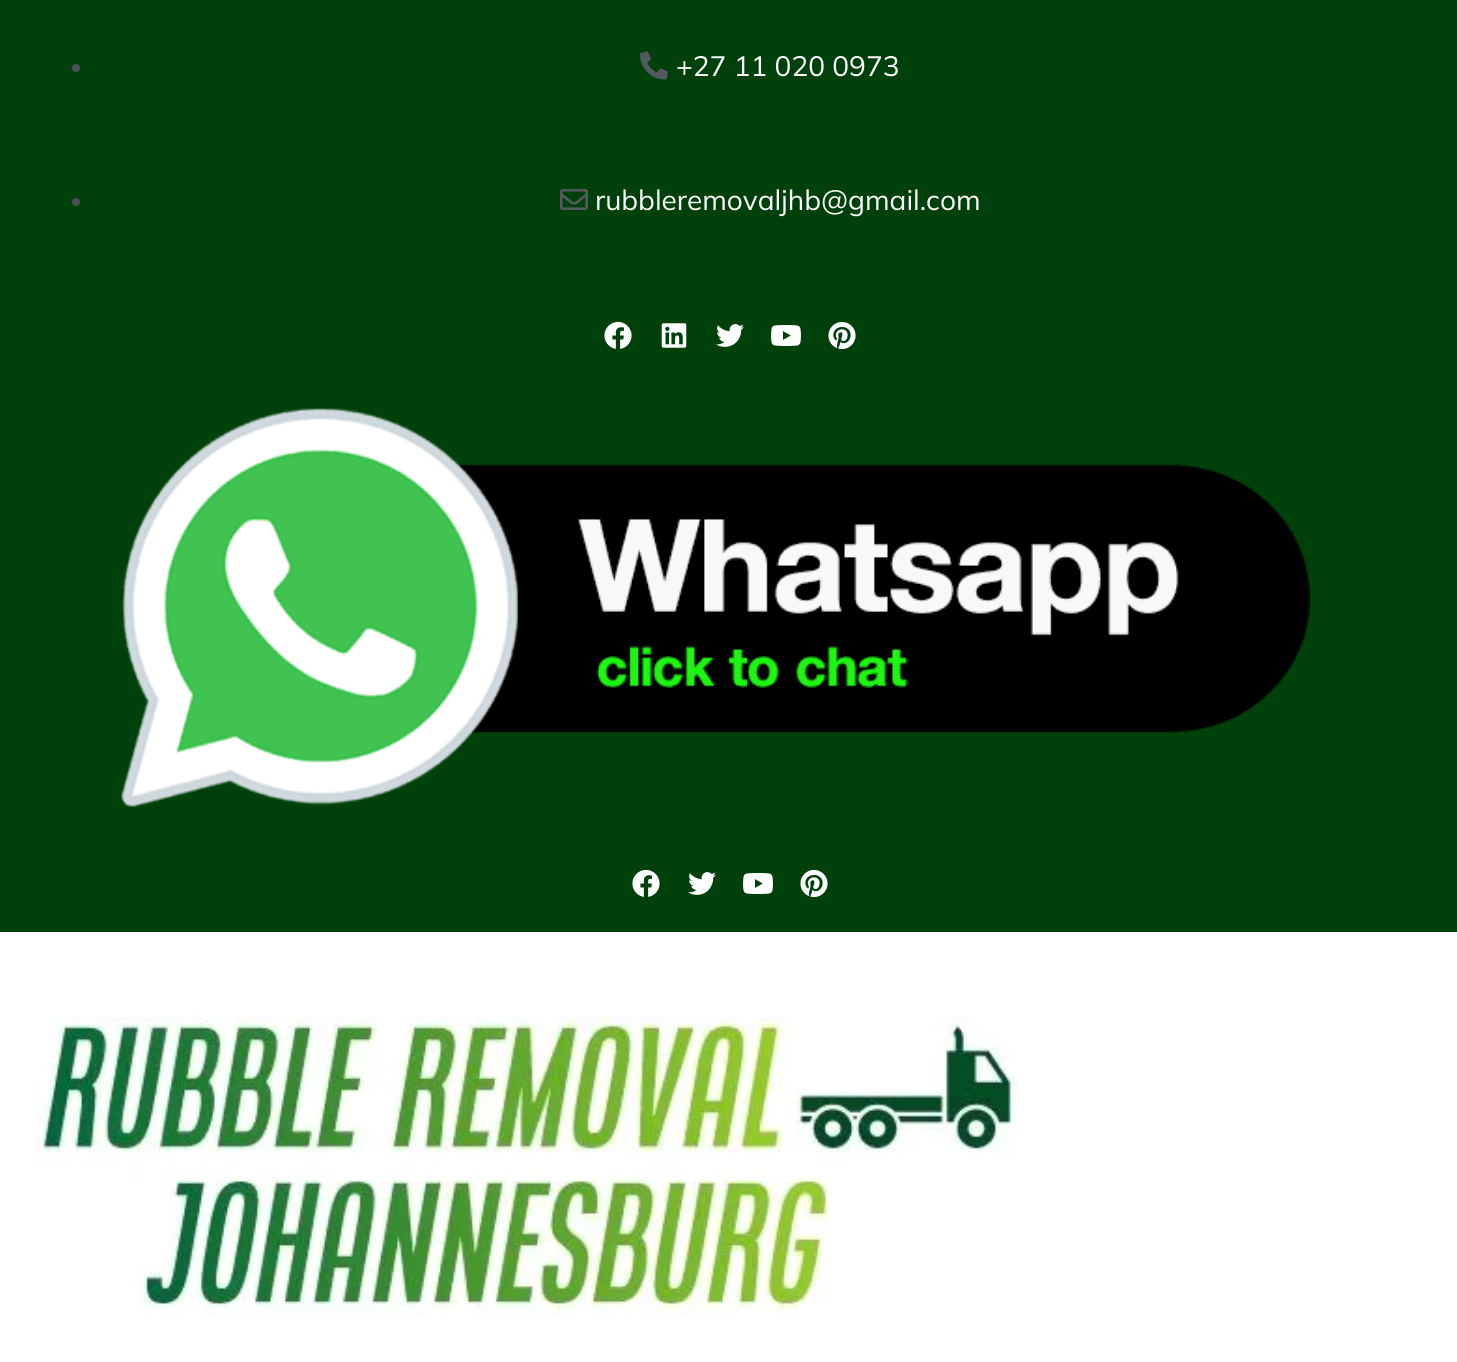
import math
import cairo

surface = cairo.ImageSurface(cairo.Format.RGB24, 1457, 1362)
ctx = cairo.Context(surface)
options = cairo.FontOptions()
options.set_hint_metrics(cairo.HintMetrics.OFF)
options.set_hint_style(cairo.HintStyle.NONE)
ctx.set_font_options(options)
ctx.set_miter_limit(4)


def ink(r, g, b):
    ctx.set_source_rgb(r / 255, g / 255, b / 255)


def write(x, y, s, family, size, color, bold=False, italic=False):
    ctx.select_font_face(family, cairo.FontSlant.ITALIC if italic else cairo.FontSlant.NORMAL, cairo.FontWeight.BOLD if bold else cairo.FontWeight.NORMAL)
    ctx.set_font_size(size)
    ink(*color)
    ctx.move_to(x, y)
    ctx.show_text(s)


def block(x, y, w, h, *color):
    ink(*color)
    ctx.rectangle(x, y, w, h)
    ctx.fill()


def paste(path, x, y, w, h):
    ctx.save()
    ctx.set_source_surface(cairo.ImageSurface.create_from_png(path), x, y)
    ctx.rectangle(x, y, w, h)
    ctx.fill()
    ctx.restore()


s1 = dict(family="Mulish", size=28, color=(255, 255, 255))

ink(0, 65, 11)
ctx.paint()
ink(75, 79, 88)
ctx.arc(76, 68, 4, 0, 2 * math.pi)
ctx.fill()
paste("pic1.png", 640, 51, 28, 29)
write(676, 76, "+27 11 020 0973", **s1)
ink(75, 79, 88)
ctx.new_path()
ctx.arc(76, 202, 4, 0, 2 * math.pi)
ctx.fill()
paste("pic2.png", 560, 189, 28, 21)
write(595, 210, "rubbleremovaljhb@gmail.com", **s1)
paste("pic3.png", 604, 321, 28, 28)
paste("pic4.png", 661, 323, 26, 25)
paste("pic5.png", 716, 324, 28, 23)
paste("pic6.png", 771, 325, 30, 21)
paste("pic7.png", 828, 321, 28, 29)
paste("pic8.png", 121, 408, 1190, 399)
paste("pic3.png", 632, 869, 28, 28)
paste("pic5.png", 688, 872, 28, 23)
paste("pic6.png", 743, 873, 30, 21)
paste("pic7.png", 800, 869, 28, 29)
block(0, 932, 1457, 430, 255, 255, 255)
paste("pic9.png", 34, 1015, 984, 302)
surface.write_to_png("screenshot.png")
